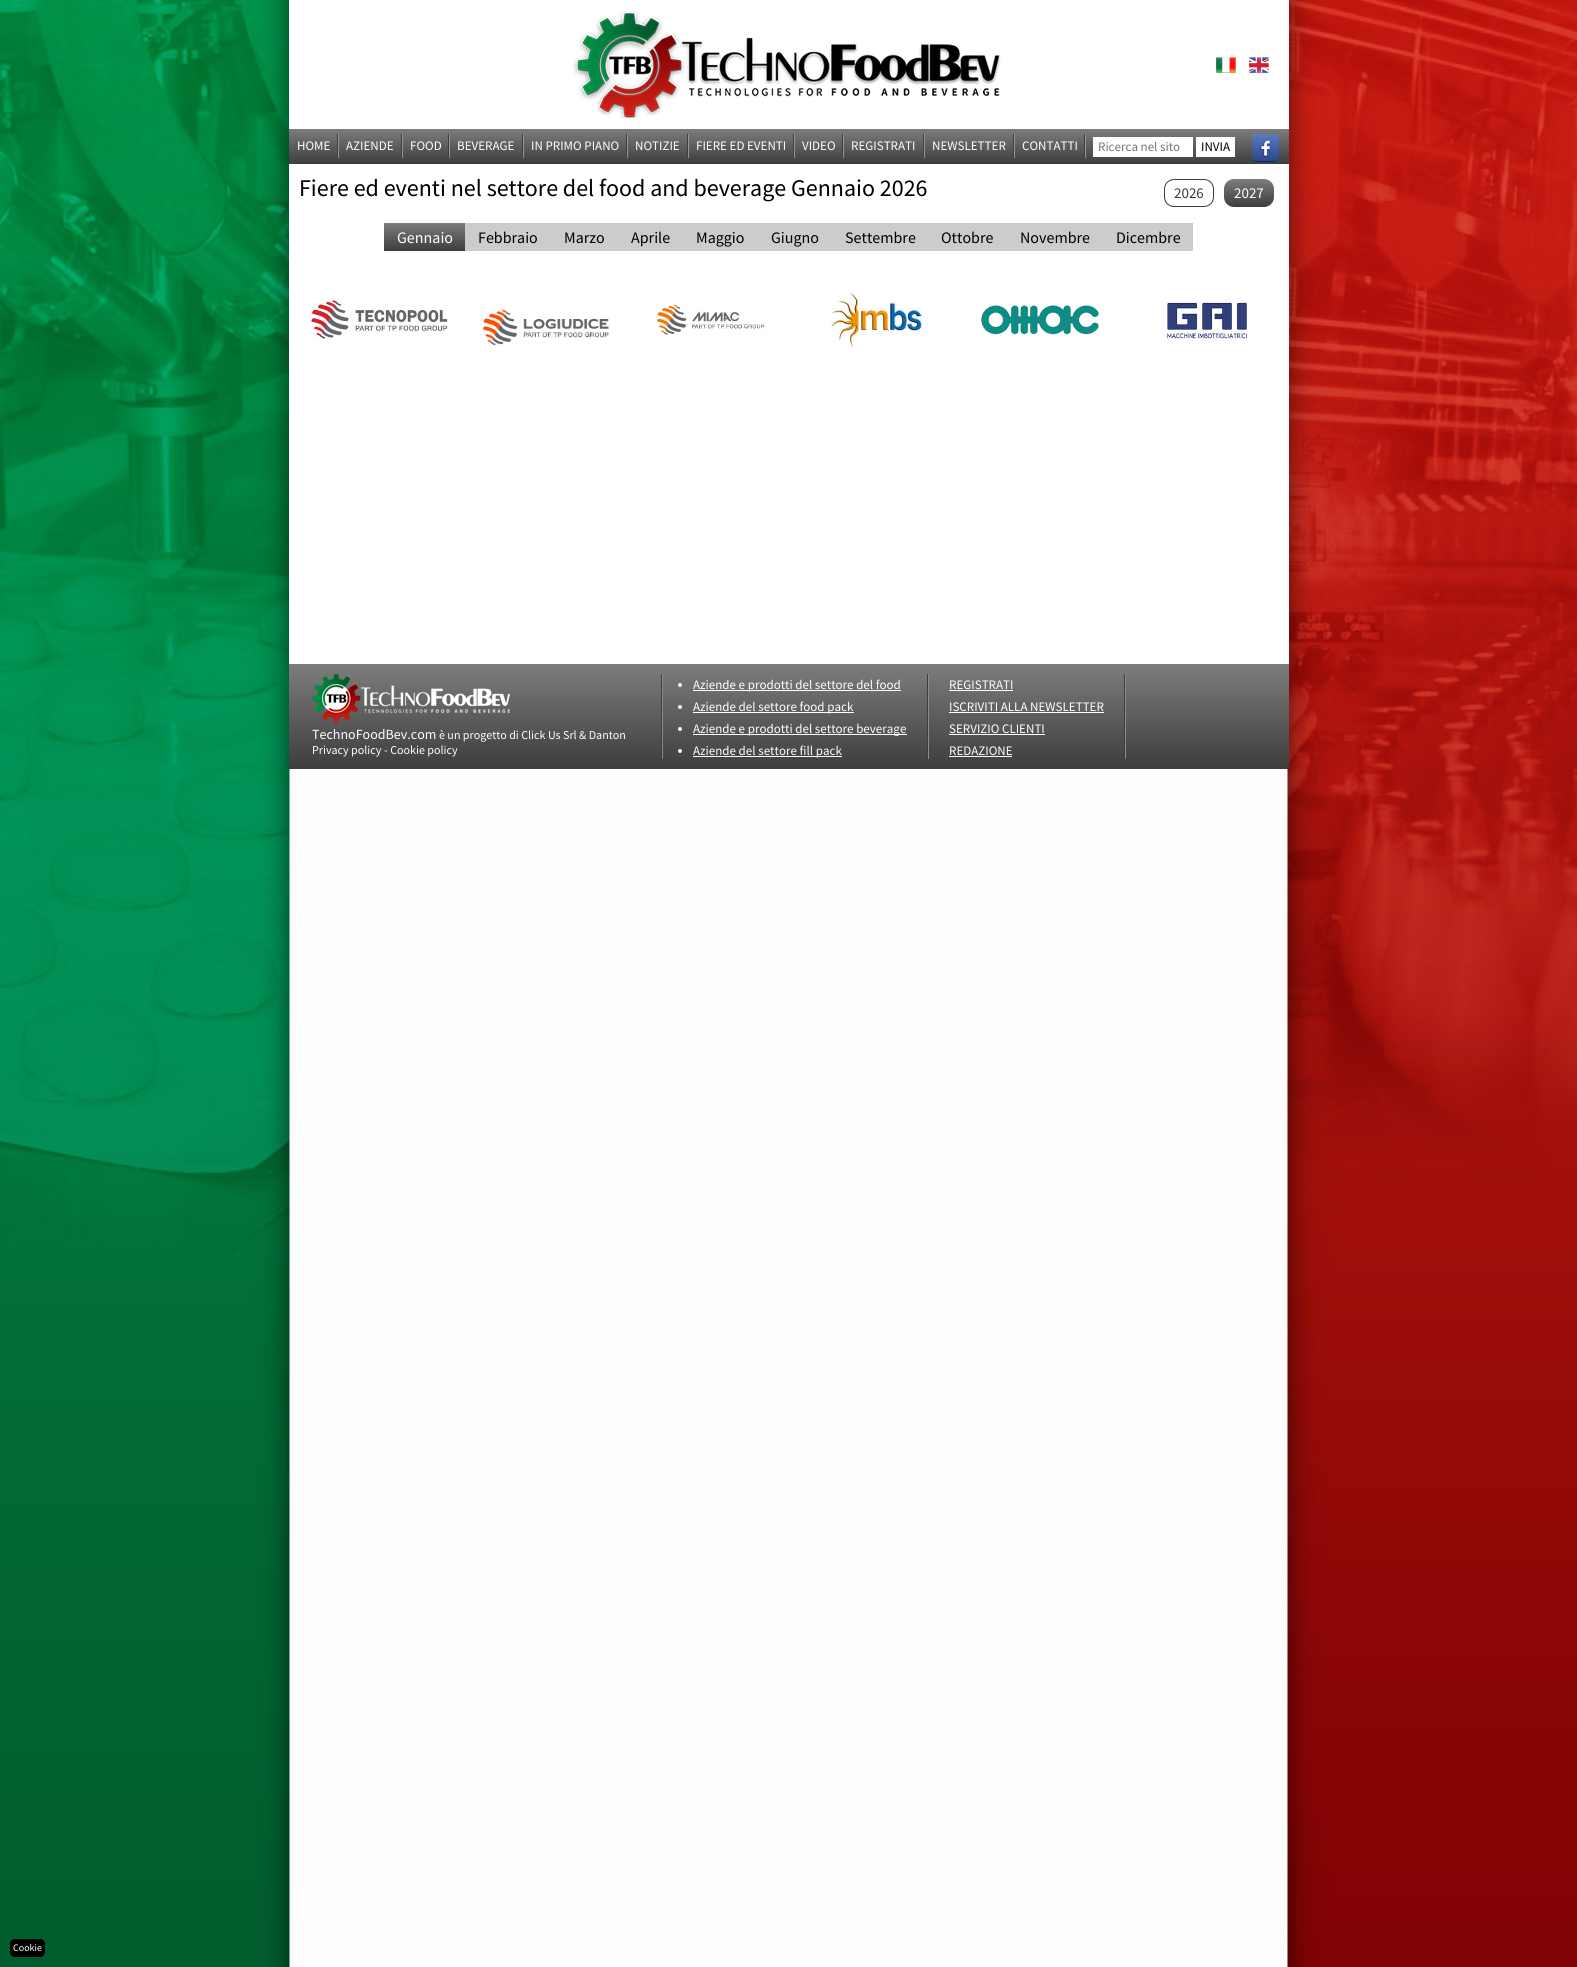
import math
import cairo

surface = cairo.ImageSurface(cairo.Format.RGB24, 1577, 1967)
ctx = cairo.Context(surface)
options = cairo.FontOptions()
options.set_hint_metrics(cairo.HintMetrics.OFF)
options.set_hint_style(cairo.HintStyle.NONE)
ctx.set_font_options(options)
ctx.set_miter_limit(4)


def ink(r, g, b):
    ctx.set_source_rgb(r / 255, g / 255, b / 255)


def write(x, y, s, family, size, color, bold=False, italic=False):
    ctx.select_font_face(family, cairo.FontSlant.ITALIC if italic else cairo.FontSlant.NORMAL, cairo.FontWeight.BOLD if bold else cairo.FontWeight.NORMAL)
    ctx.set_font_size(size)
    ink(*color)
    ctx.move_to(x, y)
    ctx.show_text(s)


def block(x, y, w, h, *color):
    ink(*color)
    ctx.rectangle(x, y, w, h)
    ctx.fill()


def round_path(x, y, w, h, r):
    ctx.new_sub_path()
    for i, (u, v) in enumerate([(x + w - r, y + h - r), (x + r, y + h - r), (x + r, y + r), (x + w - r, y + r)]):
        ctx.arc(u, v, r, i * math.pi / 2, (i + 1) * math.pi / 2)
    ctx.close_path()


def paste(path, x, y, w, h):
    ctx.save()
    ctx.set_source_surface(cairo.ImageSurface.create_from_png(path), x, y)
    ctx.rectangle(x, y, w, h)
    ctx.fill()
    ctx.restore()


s1 = dict(family="Source Sans Pro", size=13, color=(255, 255, 255))
s2 = dict(family="Source Sans Pro", size=13, color=(117, 117, 117))
s3 = dict(family="Source Sans Pro", size=13, color=(0, 0, 0))
s4 = dict(family="Source Sans Pro", size=24, color=(0, 0, 0))
s5 = dict(family="Source Sans Pro", size=15, color=(61, 61, 61))
s6 = dict(family="Source Sans Pro", size=15, color=(255, 255, 255))
s7 = dict(family="Source Sans Pro", size=16, color=(255, 255, 255))
s8 = dict(family="Source Sans Pro", size=16, color=(0, 0, 0))
s9 = dict(family="Source Sans Pro", size=14, color=(255, 255, 255))
s10 = dict(family="Source Sans Pro", size=12, color=(255, 255, 255))
s11 = dict(family="Source Sans Pro", size=10, color=(255, 255, 255))

ink(255, 255, 255)
ctx.paint()
paste("pic1.png", 0, 0, 1577, 1967)
block(289, 0, 1000, 664, 255, 255, 255)
paste("pic2.png", 573, 11, 428, 107)
paste("pic3.png", 1216, 57, 20, 16)
paste("pic4.png", 1249, 57, 20, 16)
gradient = cairo.LinearGradient(789, 129, 789, 164)
gradient.add_color_stop_rgba(0, 0.49, 0.49, 0.49, 1)
gradient.add_color_stop_rgba(1, 0.239, 0.239, 0.239, 1)
ctx.set_source(gradient)
ctx.rectangle(289, 129, 1000, 35)
ctx.fill()
block(337, 134, 1, 24, 62, 62, 62)
write(297, 150, "HOME", **s1)
block(401, 134, 1, 24, 62, 62, 62)
block(338, 134, 1, 24, 150, 150, 150)
write(346, 150, "AZIENDE", **s1)
block(448, 134, 1, 24, 62, 62, 62)
block(402, 134, 1, 24, 150, 150, 150)
write(410, 150, "FOOD", **s1)
block(522, 134, 1, 24, 62, 62, 62)
block(449, 134, 1, 24, 150, 150, 150)
write(457, 150, "BEVERAGE", **s1)
block(626, 134, 1, 24, 62, 62, 62)
block(523, 134, 1, 24, 150, 150, 150)
write(531, 150, "IN PRIMO PIANO", **s1)
block(687, 134, 1, 24, 62, 62, 62)
block(627, 134, 1, 24, 150, 150, 150)
write(635, 150, "NOTIZIE", **s1)
block(793, 134, 1, 24, 62, 62, 62)
block(688, 134, 1, 24, 150, 150, 150)
write(696, 150, "FIERE ED EVENTI", **s1)
block(842, 134, 1, 24, 62, 62, 62)
block(794, 134, 1, 24, 150, 150, 150)
write(802, 150, "VIDEO", **s1)
block(923, 134, 1, 24, 62, 62, 62)
block(843, 134, 1, 24, 150, 150, 150)
write(851, 150, "REGISTRATI", **s1)
block(1013, 134, 1, 24, 62, 62, 62)
block(924, 134, 1, 24, 150, 150, 150)
write(932, 150, "NEWSLETTER", **s1)
block(1084, 134, 1, 24, 62, 62, 62)
block(1014, 134, 1, 24, 150, 150, 150)
write(1022, 150, "CONTATTI", **s1)
block(1085, 134, 1, 24, 150, 150, 150)
block(1093, 137, 100, 20, 255, 255, 255)
write(1098, 151, "Ricerca nel sito", **s2)
block(1196, 137, 39, 20, 255, 255, 255)
write(1201, 151, "INVIA", **s3)
paste("pic5.png", 1252, 134, 27, 28)
write(299, 196, "Fiere ed eventi nel settore del food and beverage Gennaio 2026", **s4)
round_path(1164.5, 179.5, 49, 27, 9.5)
ink(61, 61, 61)
ctx.set_line_width(1)
ctx.stroke()
write(1174, 198, "2026", **s5)
gradient = cairo.LinearGradient(1249, 179, 1249, 207)
gradient.add_color_stop_rgba(0, 0.49, 0.49, 0.49, 1)
gradient.add_color_stop_rgba(1, 0.239, 0.239, 0.239, 1)
ctx.set_source(gradient)
round_path(1224, 179, 50, 28, 10)
ctx.fill()
write(1234, 198, "2027", **s6)
gradient = cairo.LinearGradient(425, 223, 425, 251)
gradient.add_color_stop_rgba(0, 0.49, 0.49, 0.49, 1)
gradient.add_color_stop_rgba(1, 0.239, 0.239, 0.239, 1)
ctx.set_source(gradient)
ctx.rectangle(384, 223, 81, 28)
ctx.fill()
write(397, 243, "Gennaio", **s7)
block(465, 223, 728, 28, 204, 204, 204)
write(478, 243, "Febbraio", **s8)
write(564, 243, "Marzo", **s8)
write(631, 243, "Aprile", **s8)
write(696, 243, "Maggio", **s8)
write(771, 243, "Giugno", **s8)
write(845, 243, "Settembre", **s8)
write(941, 243, "Ottobre", **s8)
write(1020, 243, "Novembre", **s8)
write(1116, 243, "Dicembre", **s8)
paste("pic6.png", 309, 300, 139, 41)
paste("pic7.png", 483, 309, 126, 37)
paste("pic8.png", 654, 303, 111, 32)
paste("pic9.png", 830, 292, 94, 56)
paste("pic10.png", 981, 305, 118, 30)
paste("pic11.png", 1167, 302, 80, 37)
gradient = cairo.LinearGradient(789, 664, 789, 769)
gradient.add_color_stop_rgba(0, 0.49, 0.49, 0.49, 1)
gradient.add_color_stop_rgba(1, 0.239, 0.239, 0.239, 1)
ctx.set_source(gradient)
ctx.rectangle(289, 664, 1000, 105)
ctx.fill()
block(661, 674, 1, 85, 61, 61, 61)
paste("pic12.png", 312, 674, 198, 49)
write(312, 739, "TechnoFoodBev.com", **s9)
write(439, 739, "è un progetto di Click Us Srl", **s10)
write(579, 739, "& Danton", **s10)
write(312, 754, "Privacy policy", **s10)
write(384, 754, "- Cookie policy", **s10)
block(927, 674, 1, 85, 61, 61, 61)
block(662, 674, 1, 85, 141, 141, 141)
ink(255, 255, 255)
ctx.new_path()
ctx.arc(680, 685, 2, 0, 2 * math.pi)
ctx.fill()
block(693, 690, 208, 1, 255, 255, 255)
write(693, 689, "Aziende e prodotti del settore del food", **s1)
ctx.new_path()
ctx.arc(680, 707, 2, 0, 2 * math.pi)
ctx.fill()
block(693, 712, 161, 1, 255, 255, 255)
write(693, 711, "Aziende del settore food pack", **s1)
ctx.new_path()
ctx.arc(680, 729, 2, 0, 2 * math.pi)
ctx.fill()
block(693, 734, 214, 1, 255, 255, 255)
write(693, 733, "Aziende e prodotti del settore beverage", **s1)
ctx.new_path()
ctx.arc(680, 751, 2, 0, 2 * math.pi)
ctx.fill()
block(693, 756, 149, 1, 255, 255, 255)
write(693, 755, "Aziende del settore fill pack", **s1)
block(1124, 674, 1, 85, 61, 61, 61)
block(928, 674, 1, 85, 141, 141, 141)
write(949, 689, "REGISTRATI", **s1)
block(949, 690, 64, 1, 255, 255, 255)
write(949, 711, "ISCRIVITI ALLA NEWSLETTER", **s1)
block(949, 712, 155, 1, 255, 255, 255)
write(949, 733, "SERVIZIO CLIENTI", **s1)
block(949, 734, 96, 1, 255, 255, 255)
write(949, 755, "REDAZIONE", **s1)
block(949, 756, 63, 1, 255, 255, 255)
block(1125, 674, 1, 85, 141, 141, 141)
ink(0, 0, 0)
round_path(10, 1939, 35, 18, 5)
ctx.fill()
write(13, 1951, "Cookie", **s11)
surface.write_to_png("screenshot.png")
